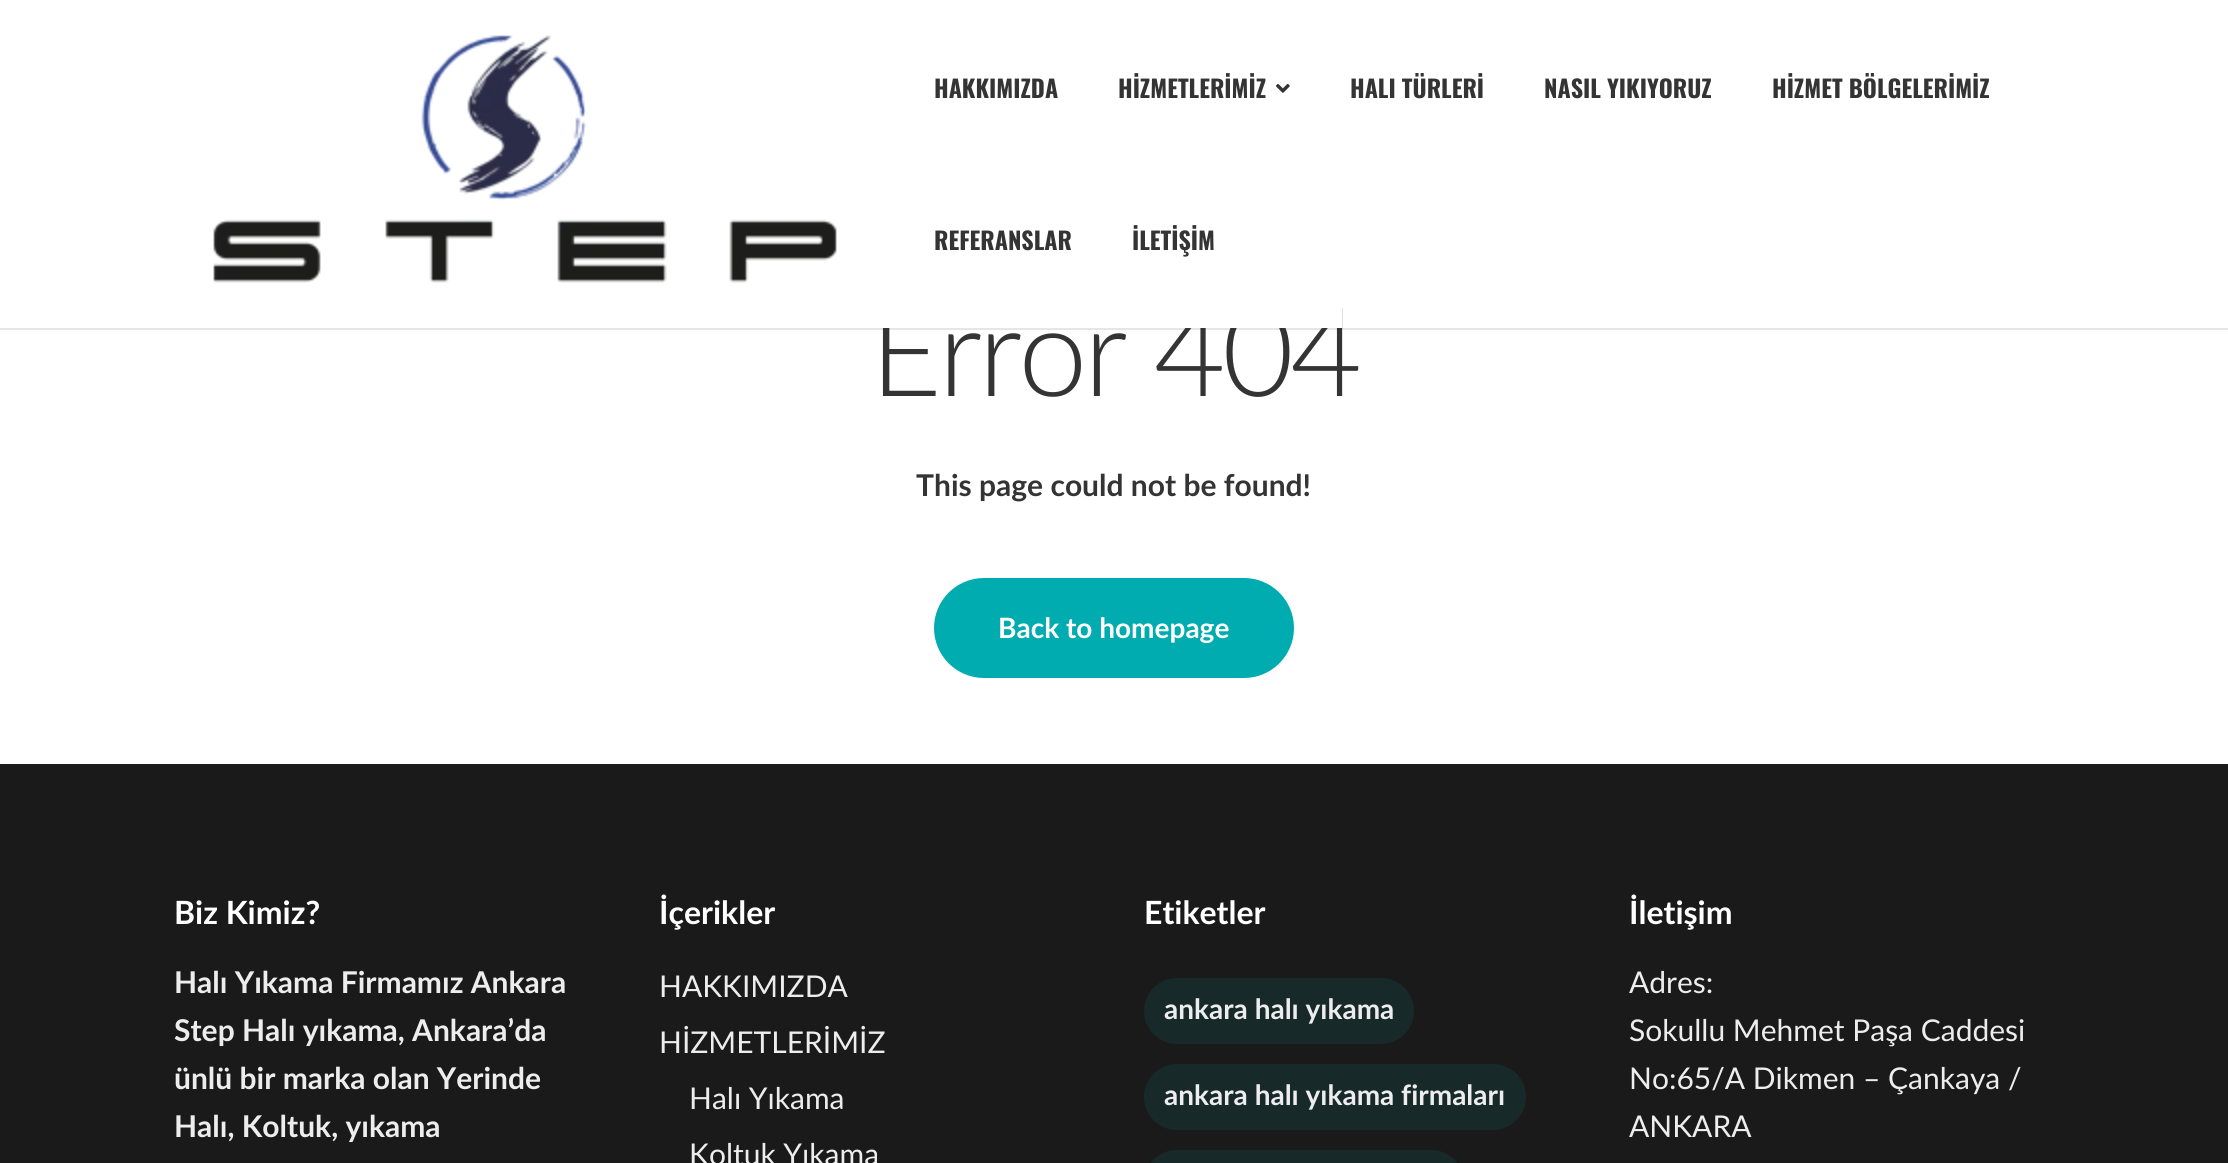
import math
import cairo

surface = cairo.ImageSurface(cairo.Format.RGB24, 2228, 1163)
ctx = cairo.Context(surface)
options = cairo.FontOptions()
options.set_hint_metrics(cairo.HintMetrics.OFF)
options.set_hint_style(cairo.HintStyle.NONE)
ctx.set_font_options(options)
ctx.set_miter_limit(4)


def ink(r, g, b):
    ctx.set_source_rgb(r / 255, g / 255, b / 255)


def write(x, y, s, family, size, color, bold=False, italic=False):
    ctx.select_font_face(family, cairo.FontSlant.ITALIC if italic else cairo.FontSlant.NORMAL, cairo.FontWeight.BOLD if bold else cairo.FontWeight.NORMAL)
    ctx.set_font_size(size)
    ink(*color)
    ctx.move_to(x, y)
    ctx.show_text(s)


def write_spaced(x, y, s, letter, word):
    ctx.move_to(x, y)
    for ch in s:
        ctx.show_text(ch)
        ctx.rel_move_to(letter + word * (ch == ' '), 0)


def block(x, y, w, h, *color):
    ink(*color)
    ctx.rectangle(x, y, w, h)
    ctx.fill()


def round_path(x, y, w, h, r):
    ctx.new_sub_path()
    for i, (u, v) in enumerate([(x + w - r, y + h - r), (x + r, y + h - r), (x + r, y + r), (x + w - r, y + r)]):
        ctx.arc(u, v, r, i * math.pi / 2, (i + 1) * math.pi / 2)
    ctx.close_path()


def paste(path, x, y, w, h):
    ctx.save()
    ctx.set_source_surface(cairo.ImageSurface.create_from_png(path), x, y)
    ctx.rectangle(x, y, w, h)
    ctx.fill()
    ctx.restore()


s1 = dict(family="Oswald", size=24, color=(52, 52, 52), bold=True)
s2 = dict(family="Lato", size=30, color=(52, 52, 52), bold=True)
s3 = dict(family="Lato", size=28, color=(255, 255, 255), bold=True)
s4 = dict(family="Lato", size=32, color=(255, 255, 255), bold=True)
s5 = dict(family="Lato", size=30, color=(237, 237, 237), bold=True)
s6 = dict(family="Lato", size=30, color=(237, 237, 237))
s7 = dict(family="Lato", size=28, color=(237, 237, 237), bold=True)

ink(255, 255, 255)
ctx.paint()
ctx.set_source_rgba(0, 0, 0, 0.1)
ctx.rectangle(0, 328, 2228, 2)
ctx.fill()
ctx.select_font_face("Lato Light")
ctx.set_font_size(124)
ink(52, 52, 52)
write_spaced(870, 396, "Error 404", -3.75, 0)
block(882, 307, 460, 21, 255, 255, 255)
paste("pic1.png", 213, 35, 624, 248)
write(934, 98, "HAKKIMIZDA", **s1)
write(1118, 98, "HİZMETLERİMİZ", **s1)
paste("pic2.png", 1276, 84, 14, 9)
write(1350, 98, "HALI TÜRLERİ", **s1)
write(1544, 98, "NASIL YIKIYORUZ", **s1)
write(1772, 98, "HİZMET BÖLGELERİMİZ", **s1)
write(934, 250, "REFERANSLAR", **s1)
write(1132, 250, "İLETİŞİM", **s1)
write(916, 496, "This page could not be found!", **s2)
ink(0, 172, 175)
round_path(936, 580, 356, 96, 48)
ctx.fill_preserve()
ctx.set_line_width(4)
ctx.stroke()
write(998, 638, "Back to homepage", **s3)
block(0, 764, 2228, 399, 26, 26, 26)
write(174, 924, "Biz Kimiz?", **s4)
write(174, 993, "Halı Yıkama Firmamız Ankara", **s5)
write(174, 1041, "Step Halı yıkama, Ankara’da", **s5)
write(174, 1089, "ünlü bir marka olan Yerinde", **s5)
write(174, 1137, "Halı, Koltuk, yıkama", **s5)
write(659, 924, "İçerikler", **s4)
write(659, 997, "HAKKIMIZDA", **s6)
write(659, 1053, "HİZMETLERİMİZ", **s6)
write(689, 1109, "Halı Yıkama", **s6)
write(689, 1165, "Koltuk Yıkama", **s6)
write(1144, 924, "Etiketler", **s4)
ink(23, 41, 41)
round_path(1144, 978, 270, 66, 33)
ctx.fill()
write(1164, 1019, "ankara halı yıkama", **s7)
ink(23, 41, 41)
round_path(1144, 1064, 382, 66, 33)
ctx.fill()
write(1164, 1105, "ankara halı yıkama firmaları", **s7)
ink(23, 41, 41)
round_path(1144, 1150, 320, 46, 33)
ctx.fill()
write(1629, 924, "İletişim", **s4)
write(1629, 993, "Adres:", **s6)
write(1629, 1041, "Sokullu Mehmet Paşa Caddesi", **s6)
write(1629, 1089, "No:65/A Dikmen – Çankaya /", **s6)
write(1629, 1137, "ANKARA", **s6)
surface.write_to_png("screenshot.png")
